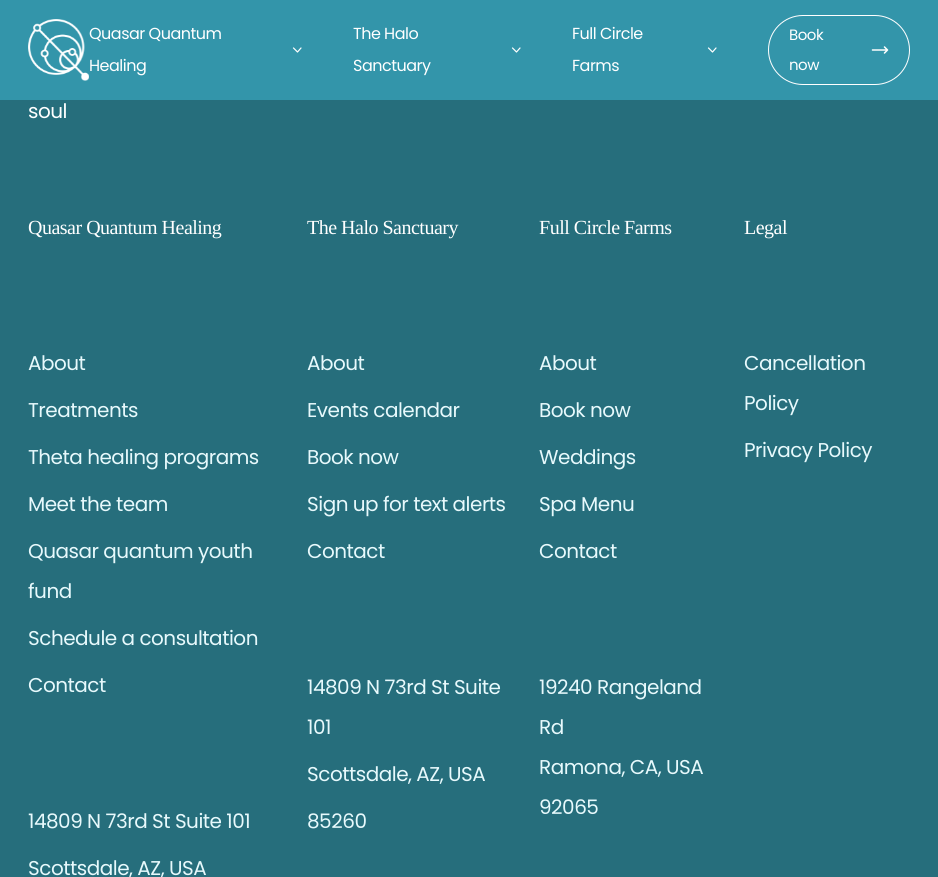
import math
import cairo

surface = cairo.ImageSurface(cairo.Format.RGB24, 938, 877)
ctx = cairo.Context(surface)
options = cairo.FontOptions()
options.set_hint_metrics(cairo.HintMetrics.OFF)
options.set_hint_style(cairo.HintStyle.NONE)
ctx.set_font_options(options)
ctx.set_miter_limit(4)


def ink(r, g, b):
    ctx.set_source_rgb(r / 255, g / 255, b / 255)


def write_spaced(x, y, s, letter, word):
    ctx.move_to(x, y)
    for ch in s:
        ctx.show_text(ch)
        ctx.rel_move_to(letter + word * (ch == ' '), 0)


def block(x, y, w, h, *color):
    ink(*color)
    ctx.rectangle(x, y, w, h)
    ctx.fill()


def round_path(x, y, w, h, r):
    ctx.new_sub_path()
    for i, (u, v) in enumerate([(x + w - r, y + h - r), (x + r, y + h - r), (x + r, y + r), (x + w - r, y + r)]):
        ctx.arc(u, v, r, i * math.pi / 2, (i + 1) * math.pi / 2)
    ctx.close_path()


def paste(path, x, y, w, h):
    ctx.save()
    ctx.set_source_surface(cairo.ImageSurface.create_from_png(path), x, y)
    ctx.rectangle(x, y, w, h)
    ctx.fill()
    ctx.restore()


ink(38, 110, 124)
ctx.paint()
block(0, 0, 938, 100, 51, 149, 170)
paste("pic1.png", 28, 19, 61, 62)
ctx.select_font_face("Poppins")
ctx.set_font_size(16)
ink(255, 255, 255)
write_spaced(89, 39, "Quasar Quantum", -0.5, 0)
ctx.new_path()
ctx.move_to(293.5, 48)
ctx.line_to(297.5, 52)
ctx.line_to(301, 48)
ctx.set_line_width(1.2)
ctx.set_line_cap(cairo.LineCap.ROUND)
ctx.set_line_join(cairo.LineJoin.ROUND)
ctx.stroke()
write_spaced(89, 71, "Healing", -0.5, 0)
write_spaced(353, 39, "The Halo", -0.5, 0)
ctx.new_path()
ctx.move_to(512.5, 48)
ctx.line_to(516.5, 52)
ctx.line_to(520, 48)
ctx.stroke()
write_spaced(353, 71, "Sanctuary", -0.5, 0)
write_spaced(572, 39, "Full Circle", -0.5, 0)
ctx.new_path()
ctx.move_to(708.5, 48)
ctx.line_to(712.5, 52)
ctx.line_to(716, 48)
ctx.stroke()
write_spaced(572, 71, "Farms", -0.5, 0)
round_path(768.5, 15.5, 141, 69, 34.5)
ctx.set_line_width(1)
ctx.set_line_cap(cairo.LineCap.BUTT)
ctx.set_line_join(cairo.LineJoin.MITER)
ctx.stroke()
ctx.set_font_size(15)
write_spaced(789, 40, "Book", -0.5, 0)
ctx.new_path()
ctx.move_to(884.5, 47)
ctx.line_to(887.5, 50)
ctx.line_to(884.5, 53)
ctx.move_to(872.5, 50)
ctx.line_to(887.5, 50)
ctx.set_line_width(1.5)
ctx.set_line_cap(cairo.LineCap.ROUND)
ctx.set_line_join(cairo.LineJoin.ROUND)
ctx.stroke()
write_spaced(789, 70, "now", -0.5, 0)
ctx.set_font_size(20)
write_spaced(28, 118, "soul", -0.5, 0)
ctx.select_font_face("Liberation Serif")
write_spaced(28, 234, "Quasar Quantum Healing", -0.5, 0)
ctx.select_font_face("Poppins")
ink(231, 249, 252)
write_spaced(28, 370, "About", -0.5, 0)
write_spaced(28, 417, "Treatments", -0.5, 0)
write_spaced(28, 464, "Theta healing programs", -0.5, 0)
write_spaced(28, 511, "Meet the team", -0.5, 0)
write_spaced(28, 558, "Quasar quantum youth", -0.5, 0)
write_spaced(28, 598, "fund", -0.5, 0)
write_spaced(28, 645, "Schedule a consultation", -0.5, 0)
write_spaced(28, 692, "Contact", -0.5, 0)
write_spaced(28, 828, "14809 N 73rd St Suite 101", -0.5, 0)
write_spaced(28, 875, "Scottsdale, AZ, USA", -0.5, 0)
ctx.select_font_face("Liberation Serif")
ink(255, 255, 255)
write_spaced(307, 234, "The Halo Sanctuary", -0.5, 0)
ctx.select_font_face("Poppins")
ink(231, 249, 252)
write_spaced(307, 370, "About", -0.5, 0)
write_spaced(307, 417, "Events calendar", -0.5, 0)
write_spaced(307, 464, "Book now", -0.5, 0)
write_spaced(307, 511, "Sign up for text alerts", -0.5, 0)
write_spaced(307, 558, "Contact", -0.5, 0)
write_spaced(307, 694, "14809 N 73rd St Suite", -0.5, 0)
write_spaced(307, 734, "101", -0.5, 0)
write_spaced(307, 781, "Scottsdale, AZ, USA", -0.5, 0)
write_spaced(307, 828, "85260", -0.5, 0)
ctx.select_font_face("Liberation Serif")
ink(255, 255, 255)
write_spaced(539, 234, "Full Circle Farms", -0.5, 0)
ctx.select_font_face("Poppins")
ink(231, 249, 252)
write_spaced(539, 370, "About", -0.5, 0)
write_spaced(539, 417, "Book now", -0.5, 0)
write_spaced(539, 464, "Weddings", -0.5, 0)
write_spaced(539, 511, "Spa Menu", -0.5, 0)
write_spaced(539, 558, "Contact", -0.5, 0)
write_spaced(539, 694, "19240 Rangeland", -0.5, 0)
write_spaced(539, 734, "Rd", -0.5, 0)
write_spaced(539, 774, "Ramona, CA, USA", -0.5, 0)
write_spaced(539, 814, "92065", -0.5, 0)
ctx.select_font_face("Liberation Serif")
ink(255, 255, 255)
write_spaced(744, 234, "Legal", -0.5, 0)
ctx.select_font_face("Poppins")
ink(231, 249, 252)
write_spaced(744, 370, "Cancellation", -0.5, 0)
write_spaced(744, 410, "Policy", -0.5, 0)
write_spaced(744, 457, "Privacy Policy", -0.5, 0)
surface.write_to_png("screenshot.png")
